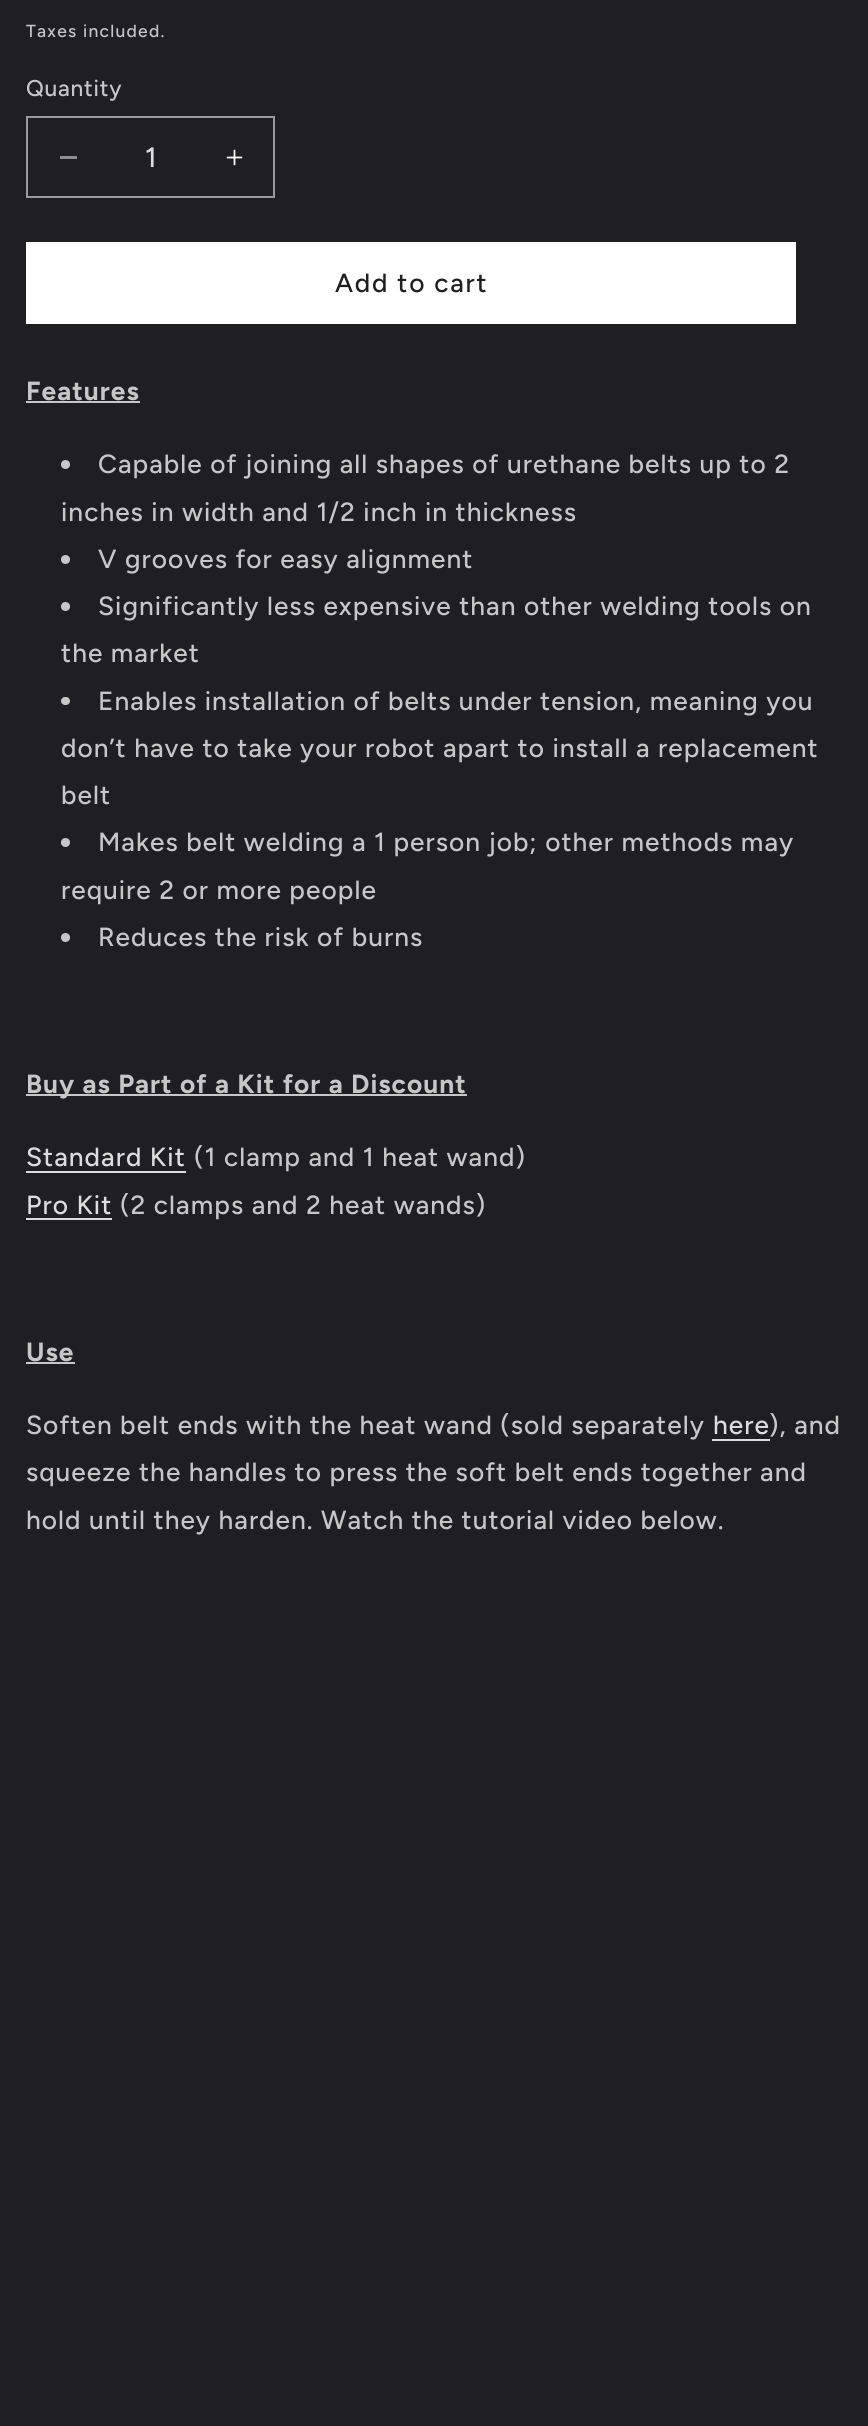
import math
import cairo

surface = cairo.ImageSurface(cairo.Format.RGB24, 868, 2426)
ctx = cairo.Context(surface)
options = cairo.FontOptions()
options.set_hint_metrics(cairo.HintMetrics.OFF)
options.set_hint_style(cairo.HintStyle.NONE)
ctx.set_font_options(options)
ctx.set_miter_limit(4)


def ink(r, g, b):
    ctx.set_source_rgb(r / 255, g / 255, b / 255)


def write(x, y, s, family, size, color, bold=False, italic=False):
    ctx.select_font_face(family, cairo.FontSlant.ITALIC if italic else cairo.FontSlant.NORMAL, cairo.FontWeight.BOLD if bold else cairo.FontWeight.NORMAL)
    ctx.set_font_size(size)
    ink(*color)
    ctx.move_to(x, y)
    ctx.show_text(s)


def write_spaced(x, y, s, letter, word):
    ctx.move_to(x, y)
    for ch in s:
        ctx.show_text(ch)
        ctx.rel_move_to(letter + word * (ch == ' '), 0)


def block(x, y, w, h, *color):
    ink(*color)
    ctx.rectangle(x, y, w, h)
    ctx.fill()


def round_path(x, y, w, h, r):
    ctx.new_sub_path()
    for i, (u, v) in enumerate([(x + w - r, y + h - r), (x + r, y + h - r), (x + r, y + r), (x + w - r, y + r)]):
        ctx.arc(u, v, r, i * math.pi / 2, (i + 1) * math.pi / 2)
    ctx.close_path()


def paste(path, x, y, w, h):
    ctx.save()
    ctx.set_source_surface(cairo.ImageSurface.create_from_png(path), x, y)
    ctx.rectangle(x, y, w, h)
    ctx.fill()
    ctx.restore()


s1 = dict(family="Figtree Medium", size=28, color=(221, 221, 222))

ink(31, 31, 33)
ctx.paint()
ctx.select_font_face("Figtree Medium")
ctx.set_font_size(17.5)
ink(199, 199, 200)
write_spaced(26, 37, "Taxes included.", 1.25, 0)
ctx.set_font_size(22.75)
write_spaced(26, 96, "Quantity", 0.75, 0)
block(60, 156, 17, 3, 143, 143, 144)
paste("pic1.png", 226, 149, 17, 17)
ctx.rectangle(27, 117, 247, 80)
ink(154, 154, 155)
ctx.stroke()
write(145, 167, "1", **s1)
block(26, 242, 770, 82, 255, 255, 255)
ctx.set_font_size(26.25)
ink(31, 31, 33)
write_spaced(335, 292, "Add to cart", 1.75, 0)
ctx.select_font_face("Figtree", cairo.FontSlant.NORMAL, cairo.FontWeight.BOLD)
ink(199, 199, 200)
write_spaced(26, 400, "Features", 1.05, 0)
block(26, 401, 114, 2, 199, 199, 200)
ctx.new_path()
ctx.arc(65.5, 464.5, 4.5, 0, 2 * math.pi)
ctx.fill()
ctx.select_font_face("Figtree Medium")
write_spaced(98, 473, "Capable of joining all shapes of urethane belts up to 2", 1.05, 0)
write_spaced(61, 521, "inches in width and 1/2 inch in thickness", 1.05, 0)
ctx.new_path()
ctx.arc(65.5, 559.5, 4.5, 0, 2 * math.pi)
ctx.fill()
write_spaced(98, 568, "V grooves for easy alignment", 1.05, 0)
ctx.new_path()
ctx.arc(65.5, 606.5, 4.5, 0, 2 * math.pi)
ctx.fill()
write_spaced(98, 615, "Significantly less expensive than other welding tools on", 1.05, 0)
write_spaced(61, 662, "the market", 1.05, 0)
round_path(61, 697, 9, 8, 4)
ctx.fill()
write_spaced(98, 710, "Enables installation of belts under tension, meaning you", 1.05, 0)
write_spaced(61, 757, "don’t have to take your robot apart to install a replacement", 1.05, 0)
write_spaced(61, 804, "belt", 1.05, 0)
ctx.new_path()
ctx.arc(65.5, 842.5, 4.5, 0, 2 * math.pi)
ctx.fill()
write_spaced(98, 851, "Makes belt welding a 1 person job; other methods may", 1.05, 0)
write_spaced(61, 899, "require 2 or more people", 1.05, 0)
ctx.new_path()
ctx.arc(65.5, 937.5, 4.5, 0, 2 * math.pi)
ctx.fill()
write_spaced(98, 946, "Reduces the risk of burns", 1.05, 0)
block(26, 1094, 441, 2, 199, 199, 200)
ctx.select_font_face("Figtree", cairo.FontSlant.NORMAL, cairo.FontWeight.BOLD)
write_spaced(26, 1093, "Buy as Part of a Kit for a Discount", 1.05, 0)
ctx.select_font_face("Figtree Medium")
ink(221, 221, 222)
write_spaced(26, 1166, "Standard Kit", 1.05, 0)
block(26, 1171, 160, 2, 221, 221, 222)
ink(199, 199, 200)
write_spaced(194, 1166, "(1 clamp and 1 heat wand)", 1.05, 0)
ink(221, 221, 222)
write_spaced(26, 1214, "Pro Kit", 1.05, 0)
block(26, 1218, 86, 2, 221, 221, 222)
ink(199, 199, 200)
write_spaced(120, 1214, "(2 clamps and 2 heat wands)", 1.05, 0)
ctx.select_font_face("Figtree", cairo.FontSlant.NORMAL, cairo.FontWeight.BOLD)
write_spaced(26, 1361, "Use", 1.05, 0)
block(26, 1362, 49, 2, 199, 199, 200)
ctx.select_font_face("Figtree Medium")
write_spaced(26, 1434, "Soften belt ends with the heat wand (sold separately", 1.05, 0)
ink(221, 221, 222)
write_spaced(713, 1434, "here", 1.05, 0)
block(712, 1439, 58, 2, 221, 221, 222)
ink(199, 199, 200)
write_spaced(769, 1434, "), and", 1.05, 0)
write_spaced(26, 1481, "squeeze the handles to press the soft belt ends together and", 1.05, 0)
write_spaced(26, 1529, "hold until they harden. Watch the tutorial video below.", 1.05, 0)
surface.write_to_png("screenshot.png")
